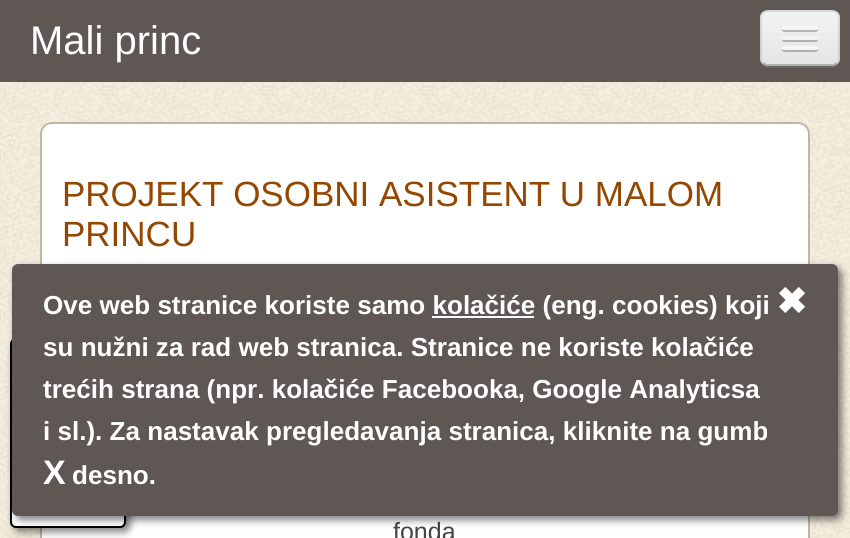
import math
import cairo

surface = cairo.ImageSurface(cairo.Format.RGB24, 850, 538)
ctx = cairo.Context(surface)
options = cairo.FontOptions()
options.set_hint_metrics(cairo.HintMetrics.OFF)
options.set_hint_style(cairo.HintStyle.NONE)
ctx.set_font_options(options)
ctx.set_miter_limit(4)


def ink(r, g, b):
    ctx.set_source_rgb(r / 255, g / 255, b / 255)


def write(x, y, s, family, size, color, bold=False, italic=False):
    ctx.select_font_face(family, cairo.FontSlant.ITALIC if italic else cairo.FontSlant.NORMAL, cairo.FontWeight.BOLD if bold else cairo.FontWeight.NORMAL)
    ctx.set_font_size(size)
    ink(*color)
    ctx.move_to(x, y)
    ctx.show_text(s)


def block(x, y, w, h, *color):
    ink(*color)
    ctx.rectangle(x, y, w, h)
    ctx.fill()


def round_path(x, y, w, h, r):
    ctx.new_sub_path()
    for i, (u, v) in enumerate([(x + w - r, y + h - r), (x + r, y + h - r), (x + r, y + r), (x + w - r, y + r)]):
        ctx.arc(u, v, r, i * math.pi / 2, (i + 1) * math.pi / 2)
    ctx.close_path()


def blur_box(x, y, w, h, r, blur, alpha):
    ctx.push_group_with_content(cairo.Content.ALPHA)
    ctx.set_operator(cairo.Operator.SOURCE)
    for i in range(15, -16, -2):
        e = blur * i / 6
        if min(w, h) + 2 * e > 0:
            ctx.set_source_rgba(0, 0, 0, alpha * math.erfc((i - 1) / 8.5) / 2)
            round_path(x - e, y - e, w + 2 * e, h + 2 * e, max(0, min(r + e + blur * .6, min(w, h) / 2 + e)))
            ctx.fill()
    ctx.mask(ctx.pop_group())


def paste(path, x, y, w, h):
    ctx.save()
    ctx.set_source_surface(cairo.ImageSurface.create_from_png(path), x, y)
    ctx.rectangle(x, y, w, h)
    ctx.fill()
    ctx.restore()


s1 = dict(family="Liberation Sans", size=40, color=(255, 255, 255))
s2 = dict(family="Liberation Sans", size=35, color=(147, 71, 0))
s3 = dict(family="Liberation Sans", size=25, color=(68, 68, 68))
s4 = dict(family="Liberation Sans", size=26.05, color=(255, 255, 255), bold=True)
s5 = dict(family="Liberation Sans", size=34, color=(255, 255, 255), bold=True)
s6 = dict(family="DejaVu Sans", size=37, color=(255, 255, 255), bold=True)

ink(255, 255, 255)
ctx.paint()
paste("pic1.png", 0, 82, 850, 456)
block(0, 0, 850, 82, 95, 87, 84)
write(30, 54, "Mali princ", **s1)
ink(107, 100, 97)
ctx.new_path()
ctx.move_to(760, 58)
ctx.curve_to(760, 70, 769, 68, 779, 68)
ctx.line_to(821, 68)
ctx.curve_to(831, 68, 840, 70, 840, 58)
ctx.curve_to(840, 62, 836, 66, 832, 66)
ctx.line_to(768, 66)
ctx.curve_to(764, 66, 760, 62, 760, 58)
ctx.close_path()
ctx.fill()
ink(237, 237, 237)
round_path(760, 10, 80, 56, 8)
ctx.fill()
ctx.save()
round_path(760, 10, 80, 56, 8)
ctx.clip()
gradient = cairo.LinearGradient(800, 12, 800, 64)
gradient.add_color_stop_rgba(0, 0.949, 0.949, 0.949, 1)
gradient.add_color_stop_rgba(1, 0.898, 0.898, 0.898, 1)
ctx.set_source(gradient)
ctx.rectangle(760, 12, 80, 52)
ctx.fill()
ctx.restore()
ctx.new_path()
ctx.move_to(837, 63)
ctx.curve_to(835.5, 64.5, 834, 65, 832, 65)
ctx.line_to(768, 65)
ctx.curve_to(766, 65, 764.5, 64.5, 763, 63)
ctx.set_source_rgba(0, 0, 0, 0.25)
ctx.stroke()
ctx.new_path()
ctx.move_to(763, 63)
ctx.curve_to(761.5, 61.5, 761, 60, 761, 58)
ctx.line_to(761, 18)
ctx.curve_to(761, 16, 761.5, 14.5, 763, 13)
ctx.curve_to(764.5, 11.5, 766, 11, 768, 11)
ctx.line_to(832, 11)
ctx.curve_to(834, 11, 835.5, 11.5, 837, 13)
ctx.curve_to(838.5, 14.5, 839, 16, 839, 18)
ctx.line_to(839, 58)
ctx.curve_to(839, 60, 838.5, 61.5, 837, 63)
ctx.set_source_rgba(0, 0, 0, 0.1)
ctx.stroke()
ink(178, 178, 178)
ctx.new_path()
ctx.move_to(782.5, 29)
ctx.curve_to(780, 33, 789, 32, 789.5, 32)
ctx.line_to(810.5, 32)
ctx.curve_to(811, 32, 820, 33, 817.5, 29)
ctx.curve_to(817.5, 29.5, 816.5, 30, 816, 30)
ctx.line_to(784, 30)
ctx.curve_to(783.5, 30, 782.5, 29.5, 782.5, 29)
ctx.close_path()
ctx.fill()
ink(245, 245, 245)
round_path(782, 26, 36, 4, 2)
ctx.fill()
ink(176, 176, 176)
ctx.new_path()
ctx.move_to(782.5, 39)
ctx.curve_to(780, 43, 789, 42, 789.5, 42)
ctx.line_to(810.5, 42)
ctx.curve_to(811, 42, 820, 43, 817.5, 39)
ctx.curve_to(817.5, 39.5, 816.5, 40, 816, 40)
ctx.line_to(784, 40)
ctx.curve_to(783.5, 40, 782.5, 39.5, 782.5, 39)
ctx.close_path()
ctx.fill()
ink(245, 245, 245)
round_path(782, 36, 36, 4, 2)
ctx.fill()
ink(174, 174, 174)
ctx.new_path()
ctx.move_to(782.5, 49)
ctx.curve_to(780, 53, 789, 52, 789.5, 52)
ctx.line_to(810.5, 52)
ctx.curve_to(811, 52, 820, 53, 817.5, 49)
ctx.curve_to(817.5, 49.5, 816.5, 50, 816, 50)
ctx.line_to(784, 50)
ctx.curve_to(783.5, 50, 782.5, 49.5, 782.5, 49)
ctx.close_path()
ctx.fill()
ink(245, 245, 245)
round_path(782, 46, 36, 4, 2)
ctx.fill()
ink(255, 255, 255)
round_path(41, 123, 768, 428, 11)
ctx.fill_preserve()
ink(191, 182, 167)
ctx.stroke()
write(62, 206, "PROJEKT OSOBNI ASISTENT U MALOM", **s2)
write(62, 246, "PRINCU", **s2)
write(393, 540, "fonda", **s3)
ink(0, 0, 0)
blur_box(14, 342, 116, 190, 6, 4, 0.5)
ink(255, 255, 255)
round_path(11, 339, 114, 188, 5)
ctx.fill_preserve()
ink(0, 0, 0)
ctx.stroke()
ink(0, 0, 0)
blur_box(16, 268, 826, 252, 6, 4, 0.5)
ink(95, 87, 84)
round_path(12, 264, 826, 252, 6)
ctx.fill()
write(43, 314, "Ove web stranice koriste samo kolačiće (eng. cookies) koji", **s4)
block(432, 316, 102, 2, 255, 255, 255)
write(43, 356, "su nužni za rad web stranica. Stranice ne koriste kolačiće", **s4)
write(43, 398, "trećih strana (npr. kolačiće Facebooka, Google Analyticsa", **s4)
write(43, 440, "i sl.). Za nastavak pregledavanja stranica, kliknite na gumb", **s4)
write(43, 484, "X", **s5)
write(72, 484, "desno.", **s4)
write(776, 314, "✖", **s6)
surface.write_to_png("screenshot.png")
